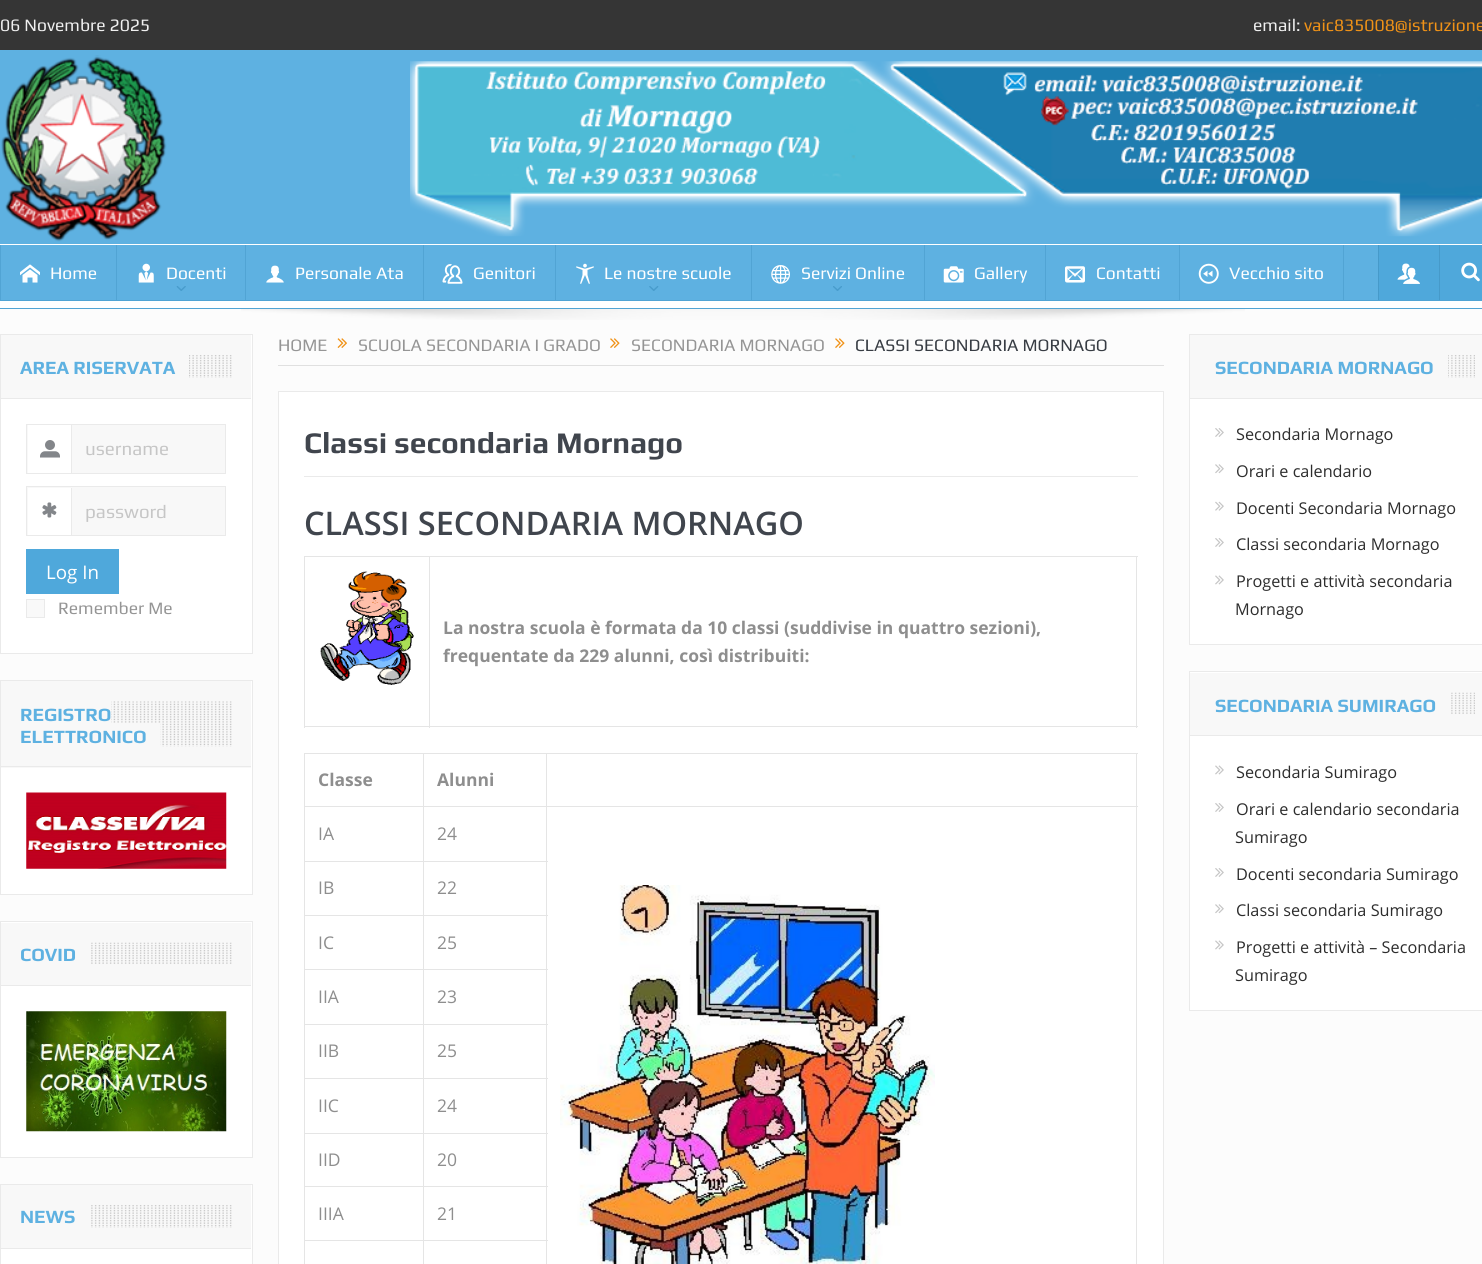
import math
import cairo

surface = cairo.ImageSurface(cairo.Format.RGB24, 1482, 1264)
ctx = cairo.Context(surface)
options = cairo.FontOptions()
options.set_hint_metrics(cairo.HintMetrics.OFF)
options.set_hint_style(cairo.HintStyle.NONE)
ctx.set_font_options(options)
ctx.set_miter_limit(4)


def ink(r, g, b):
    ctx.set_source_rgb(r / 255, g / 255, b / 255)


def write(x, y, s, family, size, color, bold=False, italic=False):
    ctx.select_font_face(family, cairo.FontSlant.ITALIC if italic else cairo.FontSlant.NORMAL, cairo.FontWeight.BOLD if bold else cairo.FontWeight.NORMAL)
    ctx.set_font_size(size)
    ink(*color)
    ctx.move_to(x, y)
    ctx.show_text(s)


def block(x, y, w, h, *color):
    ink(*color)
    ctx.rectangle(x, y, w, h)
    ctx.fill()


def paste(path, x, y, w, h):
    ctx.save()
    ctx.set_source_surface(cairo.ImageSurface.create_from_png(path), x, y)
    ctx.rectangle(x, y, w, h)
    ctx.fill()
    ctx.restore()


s1 = dict(family="Play", size=17.5, color=(240, 240, 240))
s2 = dict(family="Play", size=17.5, color=(240, 146, 23))
s3 = dict(family="Play", size=17.5, color=(255, 255, 255))
s4 = dict(family="Play", size=18.75, color=(94, 177, 225), bold=True)
s5 = dict(family="Play", size=18.75, color=(198, 198, 198))
s6 = dict(family="Open Sans", size=18.75, color=(255, 255, 255))
s7 = dict(family="Play", size=17.5, color=(149, 149, 149))
s8 = dict(family="Play", size=17.5, color=(55, 60, 67))
s9 = dict(family="Play", size=30, color=(64, 69, 77), bold=True)
s10 = dict(family="Open Sans SemiBold", size=32.5, color=(64, 69, 77))
s11 = dict(family="Open Sans", size=17.5, color=(142, 142, 142), bold=True)
s12 = dict(family="Open Sans", size=17.5, color=(142, 142, 142))
s13 = dict(family="Open Sans", size=16.25, color=(45, 45, 45))

ink(252, 252, 252)
ctx.paint()
block(0, 0, 1482, 50, 53, 53, 53)
write(0, 31, "06 Novembre 2025", **s1)
write(1253, 31, "email:", **s1)
write(1304, 31, "vaic835008@istruzione", **s2)
block(0, 50, 1482, 194, 94, 177, 225)
paste("pic1.png", 1, 55, 166, 187)
paste("pic2.png", 410, 61, 1072, 176)
block(0, 244, 1482, 64, 255, 255, 255)
block(0, 308, 1482, 1, 81, 164, 212)
block(1, 245, 1377, 55, 94, 177, 225)
block(0, 300, 1482, 1, 81, 164, 212)
block(0, 245, 1, 55, 81, 164, 212)
paste("pic3.png", 20, 264, 20, 19)
write(50, 279, "Home", **s3)
block(116, 245, 1, 55, 81, 164, 212)
paste("pic4.png", 138, 263, 16, 20)
write(166, 279, "Docenti", **s3)
paste("pic5.png", 176, 286, 10, 5)
block(245, 245, 1, 55, 81, 164, 212)
paste("pic6.png", 266, 265, 18, 18)
write(295, 279, "Personale Ata", **s3)
block(423, 245, 1, 55, 81, 164, 212)
paste("pic7.png", 442, 264, 21, 20)
write(473, 279, "Genitori", **s3)
block(555, 245, 1, 55, 81, 164, 212)
paste("pic8.png", 576, 263, 18, 21)
write(604, 279, "Le nostre scuole", **s3)
paste("pic9.png", 649, 286, 10, 5)
block(751, 245, 1, 55, 81, 164, 212)
paste("pic10.png", 771, 265, 19, 19)
write(801, 279, "Servizi Online", **s3)
paste("pic11.png", 833, 286, 9, 5)
block(924, 245, 1, 55, 81, 164, 212)
paste("pic12.png", 943, 266, 21, 17)
write(974, 279, "Gallery", **s3)
block(1045, 245, 1, 55, 81, 164, 212)
paste("pic13.png", 1065, 266, 20, 17)
write(1096, 279, "Contatti", **s3)
block(1343, 245, 1, 55, 81, 164, 212)
block(1179, 245, 1, 55, 81, 164, 212)
paste("pic14.png", 1198, 263, 21, 21)
write(1229, 279, "Vecchio sito", **s3)
block(1379, 245, 60, 55, 79, 168, 219)
block(1439, 245, 1, 55, 70, 154, 202)
block(1378, 245, 1, 55, 70, 154, 202)
paste("pic15.png", 1397, 263, 23, 21)
block(1440, 245, 42, 55, 79, 168, 219)
paste("pic16.png", 1461, 262, 19, 20)
paste("pic17.png", 241, 309, 1004, 11)
ink(255, 255, 255)
ctx.rectangle(0.5, 334.5, 252, 319)
ctx.fill_preserve()
ink(234, 234, 234)
ctx.set_line_width(1)
ctx.stroke()
block(1, 335, 250, 63, 248, 248, 248)
block(1, 398, 250, 1, 234, 234, 234)
paste("pic18.png", 189, 355, 43, 23)
write(20, 374, "AREA RISERVATA", **s4)
ink(248, 248, 248)
ctx.rectangle(26.5, 424.5, 199, 49)
ctx.fill_preserve()
ink(234, 234, 234)
ctx.stroke()
block(28, 425, 43, 48, 255, 255, 255)
block(71, 425, 1, 48, 234, 234, 234)
paste("pic19.png", 40, 440, 20, 18)
write(85, 455, "username", **s5)
ink(248, 248, 248)
ctx.rectangle(26.5, 486.5, 199, 49)
ctx.fill_preserve()
ink(234, 234, 234)
ctx.stroke()
block(28, 488, 43, 47, 255, 255, 255)
block(71, 488, 1, 47, 234, 234, 234)
paste("pic20.png", 42, 502, 15, 16)
write(85, 518, "password", **s5)
block(26, 549, 93, 45, 79, 168, 219)
write(46, 579, "Log In", **s6)
ink(249, 249, 249)
ctx.rectangle(26.5, 599.5, 18, 18)
ctx.fill_preserve()
ink(234, 234, 234)
ctx.stroke()
write(58, 614, "Remember Me", **s7)
ink(255, 255, 255)
ctx.rectangle(0.5, 680.5, 252, 214)
ctx.fill_preserve()
ink(234, 234, 234)
ctx.stroke()
block(1, 681, 250, 87, 248, 248, 248)
block(1, 766, 250, 1, 234, 234, 234)
paste("pic21.png", 111, 701, 121, 46)
write(20, 721, "REGISTRO", **s4)
block(111, 723, 49, 24, 248, 248, 248)
write(20, 743, "ELETTRONICO", **s4)
paste("pic22.png", 26, 792, 201, 77)
ink(255, 255, 255)
ctx.rectangle(0.5, 921.5, 252, 236)
ctx.fill_preserve()
ink(234, 234, 234)
ctx.stroke()
block(1, 923, 250, 62, 248, 248, 248)
block(1, 985, 250, 1, 234, 234, 234)
paste("pic23.png", 91, 942, 141, 22)
write(20, 961, "COVID", **s4)
paste("pic24.png", 26, 1011, 201, 121)
ink(255, 255, 255)
ctx.rectangle(0.5, 1184.5, 252, 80)
ctx.fill_preserve()
ink(234, 234, 234)
ctx.stroke()
block(1, 1185, 250, 63, 248, 248, 248)
block(1, 1248, 250, 1, 234, 234, 234)
paste("pic25.png", 91, 1205, 141, 23)
write(20, 1223, "NEWS", **s4)
block(278, 365, 886, 1, 224, 224, 224)
write(278, 351, "HOME", **s7)
paste("pic26.png", 337, 338, 10, 10)
write(358, 351, "SCUOLA SECONDARIA I GRADO", **s7)
paste("pic27.png", 610, 338, 10, 10)
write(631, 351, "SECONDARIA MORNAGO", **s7)
paste("pic27.png", 835, 338, 10, 10)
write(855, 351, "CLASSI SECONDARIA MORNAGO", **s8)
ink(255, 255, 255)
ctx.rectangle(278.5, 391.5, 885, 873)
ctx.fill_preserve()
ink(234, 234, 234)
ctx.stroke()
block(304, 476, 834, 1, 234, 234, 234)
write(304, 453, "Classi secondaria Mornago", **s9)
write(304, 535, "CLASSI SECONDARIA MORNAGO", **s10)
block(429, 556, 709, 1, 229, 229, 229)
block(1136, 556, 1, 172, 229, 229, 229)
block(429, 726, 709, 1, 229, 229, 229)
block(429, 556, 1, 172, 229, 229, 229)
block(304, 556, 126, 1, 229, 229, 229)
block(304, 726, 126, 1, 229, 229, 229)
block(304, 556, 1, 172, 229, 229, 229)
paste("pic28.png", 320, 571, 94, 114)
write(443, 634, "La nostra scuola è formata da 10 classi (suddivise in quattro sezioni),", **s11)
write(443, 662, "frequentate da 229 alunni, così distribuiti:", **s11)
block(546, 753, 592, 1, 229, 229, 229)
block(546, 806, 592, 1, 229, 229, 229)
block(423, 861, 125, 1, 229, 229, 229)
block(423, 915, 125, 1, 229, 229, 229)
block(423, 969, 125, 1, 229, 229, 229)
block(423, 1024, 125, 1, 229, 229, 229)
block(423, 1078, 125, 1, 229, 229, 229)
block(423, 1133, 125, 1, 229, 229, 229)
block(423, 1186, 125, 1, 229, 229, 229)
block(423, 1240, 125, 1, 229, 229, 229)
block(546, 806, 1, 458, 229, 229, 229)
block(423, 806, 125, 1, 229, 229, 229)
block(546, 753, 1, 55, 229, 229, 229)
block(423, 753, 125, 1, 229, 229, 229)
block(423, 1240, 1, 24, 229, 229, 229)
block(304, 1240, 120, 1, 229, 229, 229)
block(423, 1186, 1, 55, 229, 229, 229)
block(304, 1186, 120, 1, 229, 229, 229)
block(423, 1133, 1, 55, 229, 229, 229)
block(304, 1133, 120, 1, 229, 229, 229)
block(423, 1078, 1, 56, 229, 229, 229)
block(304, 1078, 120, 1, 229, 229, 229)
block(423, 1024, 1, 55, 229, 229, 229)
block(304, 1024, 120, 1, 229, 229, 229)
block(423, 969, 1, 56, 229, 229, 229)
block(304, 969, 120, 1, 229, 229, 229)
block(423, 915, 1, 55, 229, 229, 229)
block(304, 915, 120, 1, 229, 229, 229)
block(423, 861, 1, 55, 229, 229, 229)
block(304, 861, 120, 1, 229, 229, 229)
block(423, 806, 1, 57, 229, 229, 229)
block(304, 806, 120, 1, 229, 229, 229)
block(423, 753, 1, 55, 229, 229, 229)
block(304, 753, 120, 1, 229, 229, 229)
block(304, 1240, 1, 24, 229, 229, 229)
block(304, 1186, 1, 55, 229, 229, 229)
block(304, 1133, 1, 55, 229, 229, 229)
block(304, 1078, 1, 56, 229, 229, 229)
block(304, 1024, 1, 55, 229, 229, 229)
block(304, 969, 1, 56, 229, 229, 229)
block(304, 915, 1, 55, 229, 229, 229)
block(304, 861, 1, 55, 229, 229, 229)
block(304, 806, 1, 57, 229, 229, 229)
block(304, 753, 1, 55, 229, 229, 229)
write(318, 786, "Classe", **s11)
write(437, 786, "Alunni", **s11)
block(1136, 806, 1, 458, 229, 229, 229)
block(1136, 753, 1, 55, 229, 229, 229)
write(318, 840, "IA", **s12)
write(437, 840, "24", **s12)
paste("pic29.png", 560, 885, 375, 379)
write(318, 894, "IB", **s12)
write(437, 894, "22", **s12)
write(318, 949, "IC", **s12)
write(437, 949, "25", **s12)
write(318, 1003, "IIA", **s12)
write(437, 1003, "23", **s12)
write(318, 1057, "IIB", **s12)
write(437, 1057, "25", **s12)
write(318, 1112, "IIC", **s12)
write(437, 1112, "24", **s12)
write(318, 1166, "IID", **s12)
write(437, 1166, "20", **s12)
write(318, 1220, "IIIA", **s12)
write(437, 1220, "21", **s12)
block(1190, 399, 292, 245, 255, 255, 255)
ctx.rectangle(1189.5, 334.5, 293, 310)
ink(234, 234, 234)
ctx.stroke()
block(1190, 335, 292, 63, 248, 248, 248)
block(1190, 398, 292, 1, 234, 234, 234)
paste("pic30.png", 1448, 355, 27, 23)
write(1215, 374, "SECONDARIA MORNAGO", **s4)
paste("pic31.png", 1215, 428, 9, 9)
write(1236, 440, "Secondaria Mornago", **s13)
paste("pic32.png", 1215, 464, 9, 10)
write(1236, 477, "Orari e calendario", **s13)
paste("pic33.png", 1215, 501, 9, 10)
write(1236, 514, "Docenti Secondaria Mornago", **s13)
paste("pic31.png", 1215, 538, 9, 9)
write(1236, 550, "Classi secondaria Mornago", **s13)
paste("pic34.png", 1215, 575, 9, 10)
write(1236, 587, "Progetti e attività secondaria", **s13)
write(1235, 615, "Mornago", **s13)
ink(255, 255, 255)
ctx.rectangle(1189.5, 671.5, 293, 339)
ctx.fill_preserve()
ink(234, 234, 234)
ctx.stroke()
block(1190, 673, 292, 62, 248, 248, 248)
block(1190, 735, 292, 1, 234, 234, 234)
paste("pic35.png", 1451, 692, 24, 22)
write(1215, 712, "SECONDARIA SUMIRAGO", **s4)
paste("pic34.png", 1215, 765, 9, 10)
write(1236, 778, "Secondaria Sumirago", **s13)
paste("pic31.png", 1215, 803, 9, 9)
write(1236, 815, "Orari e calendario secondaria", **s13)
write(1235, 843, "Sumirago", **s13)
paste("pic31.png", 1215, 868, 9, 9)
write(1236, 880, "Docenti secondaria Sumirago", **s13)
paste("pic32.png", 1215, 904, 9, 10)
write(1236, 916, "Classi secondaria Sumirago", **s13)
paste("pic34.png", 1215, 940, 9, 10)
write(1236, 953, "Progetti e attività – Secondaria", **s13)
write(1235, 981, "Sumirago", **s13)
surface.write_to_png("screenshot.png")
